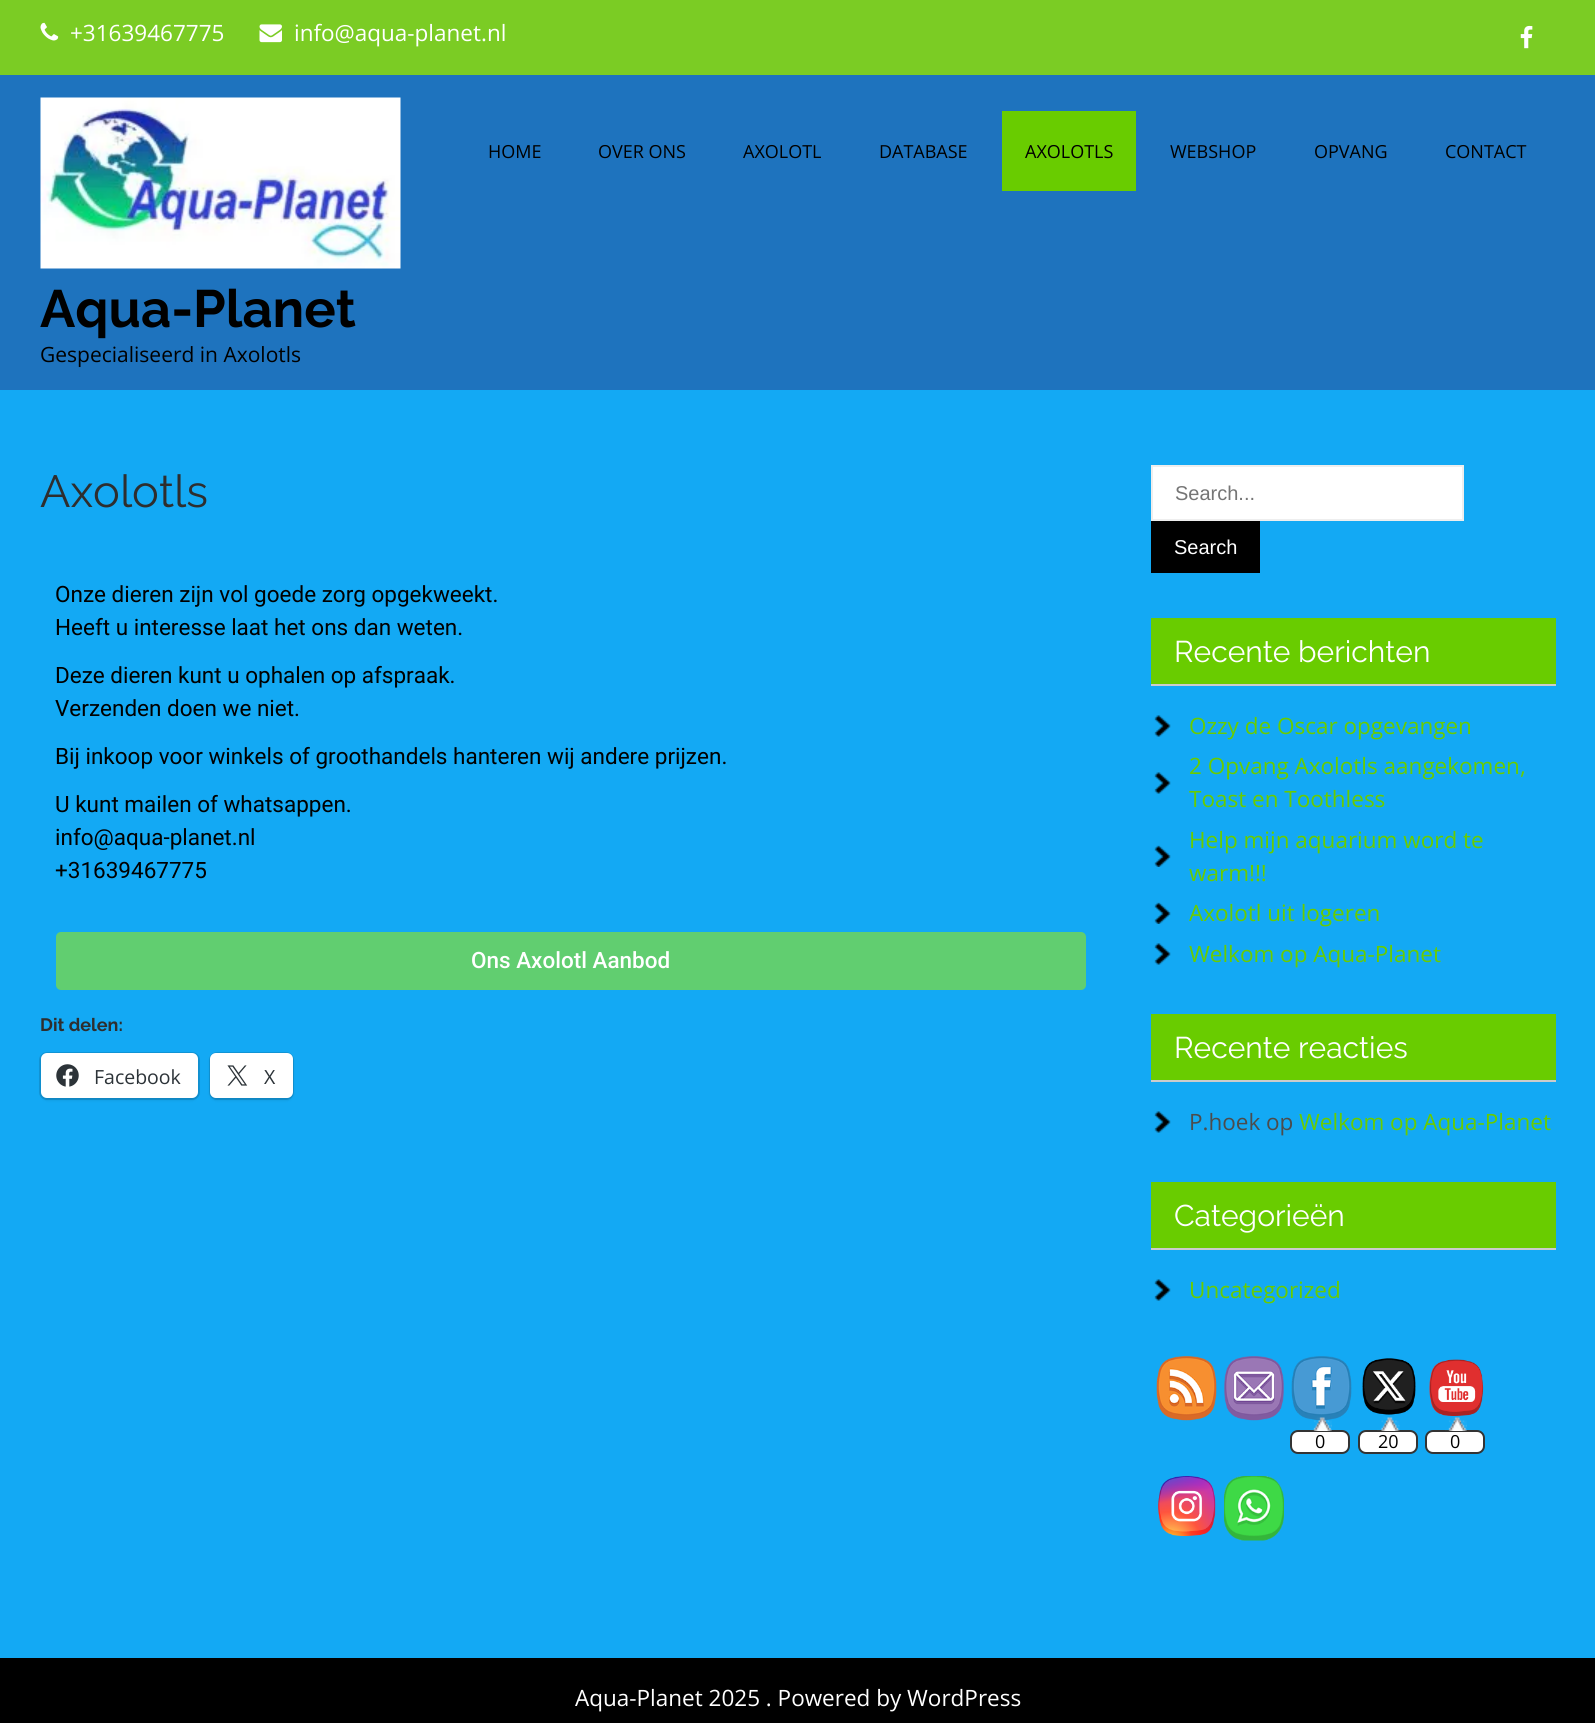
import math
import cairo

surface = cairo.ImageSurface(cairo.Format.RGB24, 1595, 1723)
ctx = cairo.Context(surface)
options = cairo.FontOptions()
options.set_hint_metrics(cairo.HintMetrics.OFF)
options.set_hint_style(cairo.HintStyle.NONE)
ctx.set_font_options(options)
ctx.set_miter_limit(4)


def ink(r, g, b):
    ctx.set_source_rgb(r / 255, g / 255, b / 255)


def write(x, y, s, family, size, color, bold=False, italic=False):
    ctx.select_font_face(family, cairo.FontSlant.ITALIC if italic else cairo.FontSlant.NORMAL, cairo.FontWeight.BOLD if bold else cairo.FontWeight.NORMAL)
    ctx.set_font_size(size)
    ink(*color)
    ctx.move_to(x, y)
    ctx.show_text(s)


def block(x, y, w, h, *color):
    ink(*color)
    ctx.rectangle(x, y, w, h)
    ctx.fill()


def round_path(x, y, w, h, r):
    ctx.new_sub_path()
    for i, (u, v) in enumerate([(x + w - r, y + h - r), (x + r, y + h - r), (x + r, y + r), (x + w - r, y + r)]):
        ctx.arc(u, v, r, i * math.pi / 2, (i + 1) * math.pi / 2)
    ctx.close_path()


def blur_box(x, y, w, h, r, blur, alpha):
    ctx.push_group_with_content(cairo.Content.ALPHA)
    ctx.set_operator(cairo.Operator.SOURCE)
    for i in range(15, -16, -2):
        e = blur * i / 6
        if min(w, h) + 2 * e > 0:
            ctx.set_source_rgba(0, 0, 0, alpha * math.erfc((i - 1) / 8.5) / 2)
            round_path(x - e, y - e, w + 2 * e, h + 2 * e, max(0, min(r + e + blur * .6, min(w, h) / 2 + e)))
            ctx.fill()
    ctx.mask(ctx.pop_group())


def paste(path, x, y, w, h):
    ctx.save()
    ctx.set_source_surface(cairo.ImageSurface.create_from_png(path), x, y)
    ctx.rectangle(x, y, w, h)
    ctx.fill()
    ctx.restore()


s1 = dict(family="Open Sans", size=22.5, color=(255, 255, 255))
s2 = dict(family="Open Sans", size=18, color=(0, 0, 0))
s3 = dict(family="Raleway", size=52.5, color=(0, 0, 0), bold=True)
s4 = dict(family="Open Sans", size=21, color=(0, 0, 0))
s5 = dict(family="Raleway", size=45, color=(46, 46, 46))
s6 = dict(family="Roboto", size=22.5, color=(0, 0, 0))
s7 = dict(family="Roboto Medium", size=22.5, color=(255, 255, 255))
s8 = dict(family="Raleway", size=18, color=(46, 46, 46), bold=True)
s9 = dict(family="Open Sans", size=19.5, color=(44, 51, 56))
s10 = dict(family="Liberation Sans", size=20, color=(117, 117, 117))
s11 = dict(family="Liberation Sans", size=20, color=(255, 255, 255))
s12 = dict(family="Raleway", size=30, color=(255, 255, 255))
s13 = dict(family="Open Sans", size=22.5, color=(105, 204, 0))
s14 = dict(family="Open Sans", size=22.5, color=(76, 76, 76))

ink(19, 169, 244)
ctx.paint()
block(0, 0, 1595, 75, 123, 204, 36)
paste("pic1.png", 40, 22, 19, 19)
write(70, 41, "+31639467775", **s1)
paste("pic2.png", 259, 24, 23, 19)
write(294, 41, "info@aqua-planet.nl", **s1)
paste("pic3.png", 1520, 25, 13, 24)
block(0, 75, 1595, 315, 30, 115, 190)
write(488, 158, "HOME", **s2)
write(598, 158, "OVER ONS", **s2)
write(743, 158, "AXOLOTL", **s2)
write(879, 158, "DATABASE", **s2)
block(1002, 111, 134, 80, 105, 204, 0)
write(1025, 158, "AXOLOTLS", **s2)
write(1170, 158, "WEBSHOP", **s2)
write(1314, 158, "OPVANG", **s2)
write(1445, 158, "CONTACT", **s2)
paste("pic4.png", 40, 97, 361, 172)
write(40, 327, "Aqua-Planet", **s3)
write(40, 362, "Gespecialiseerd in Axolotls", **s4)
write(40, 507, "Axolotls", **s5)
write(55, 602, "Onze dieren zijn vol goede zorg opgekweekt.", **s6)
write(55, 635, "Heeft u interesse laat het ons dan weten.", **s6)
write(55, 683, "Deze dieren kunt u ophalen op afspraak.", **s6)
write(55, 716, "Verzenden doen we niet.", **s6)
write(55, 764, "Bij inkoop voor winkels of groothandels hanteren wij andere prijzen.", **s6)
write(55, 812, "U kunt mailen of whatsappen.", **s6)
write(55, 845, "info@aqua-planet.nl", **s6)
write(55, 878, "+31639467775", **s6)
ink(97, 206, 112)
round_path(56, 932, 1030, 58, 5)
ctx.fill()
write(471, 968, "Ons Axolotl Aanbod", **s7)
write(40, 1031, "Dit delen:", **s8)
round_path(40, 1053, 159, 46, 7)
ink(17, 149, 215)
ctx.stroke()
ink(0, 0, 0)
blur_box(41, 1055, 157, 45, 6, 1.5, 0.12)
ink(255, 255, 255)
round_path(41, 1053, 157, 45, 6)
ctx.fill()
paste("pic5.png", 56, 1064, 23, 23)
write(94, 1084, "Facebook", **s9)
round_path(210, 1053, 83, 46, 7)
ink(17, 149, 215)
ctx.stroke()
ink(0, 0, 0)
blur_box(210, 1055, 83, 45, 6, 1.5, 0.12)
ink(255, 255, 255)
round_path(210, 1053, 83, 45, 6)
ctx.fill()
paste("pic6.png", 227, 1065, 21, 21)
write(264, 1084, "X", **s9)
ink(255, 255, 255)
ctx.rectangle(1152, 466, 311, 54)
ctx.fill_preserve()
ink(238, 238, 238)
ctx.stroke()
write(1175, 500, "Search...", **s10)
block(1151, 521, 109, 52, 0, 0, 0)
write(1174, 554, "Search", **s11)
block(1151, 618, 405, 66, 105, 204, 0)
block(1151, 684, 405, 2, 204, 204, 204)
write(1174, 662, "Recente berichten", **s12)
paste("pic7.png", 1154, 715, 17, 22)
write(1189, 734, "Ozzy de Oscar opgevangen", **s13)
paste("pic7.png", 1154, 772, 17, 22)
write(1189, 774, "2 Opvang Axolotls aangekomen,", **s13)
write(1189, 807, "Toast en Toothless", **s13)
paste("pic8.png", 1154, 845, 17, 22)
write(1189, 848, "Help mijn aquarium word te", **s13)
write(1189, 881, "warm!!!", **s13)
paste("pic8.png", 1154, 902, 17, 22)
write(1189, 921, "Axolotl uit logeren", **s13)
paste("pic7.png", 1154, 943, 17, 22)
write(1189, 962, "Welkom op Aqua-Planet", **s13)
block(1151, 1014, 405, 66, 105, 204, 0)
block(1151, 1080, 405, 2, 204, 204, 204)
write(1174, 1058, "Recente reacties", **s12)
paste("pic7.png", 1154, 1111, 17, 22)
write(1189, 1130, "P.hoek op", **s14)
write(1299, 1130, "Welkom op Aqua-Planet", **s13)
block(1151, 1182, 405, 66, 105, 204, 0)
block(1151, 1248, 405, 2, 204, 204, 204)
write(1174, 1226, "Categorieën", **s12)
paste("pic7.png", 1154, 1279, 17, 22)
write(1189, 1298, "Uncategorized", **s13)
paste("pic9.png", 1156, 1356, 61, 65)
paste("pic10.png", 1224, 1356, 60, 65)
paste("pic11.png", 1291, 1356, 61, 65)
ink(255, 255, 255)
round_path(1291, 1431, 58, 22, 7)
ctx.fill_preserve()
ink(51, 51, 51)
ctx.stroke()
paste("pic12.png", 1310, 1417, 22, 14)
write(1315, 1448, "0", **s2)
paste("pic13.png", 1362, 1358, 54, 57)
ink(255, 255, 255)
round_path(1359, 1431, 58, 22, 7)
ctx.fill_preserve()
ink(51, 51, 51)
ctx.stroke()
paste("pic14.png", 1377, 1417, 23, 14)
write(1378, 1448, "20", **s2)
paste("pic15.png", 1429, 1359, 55, 57)
ink(255, 255, 255)
round_path(1426, 1431, 58, 22, 7)
ctx.fill_preserve()
ink(51, 51, 51)
ctx.stroke()
paste("pic16.png", 1445, 1417, 22, 14)
write(1450, 1448, "0", **s2)
paste("pic17.png", 1158, 1476, 58, 60)
paste("pic18.png", 1224, 1476, 60, 65)
block(0, 1658, 1595, 65, 0, 0, 0)
write(575, 1706, "Aqua-Planet 2025 . Powered by WordPress", **s1)
surface.write_to_png("screenshot.png")
